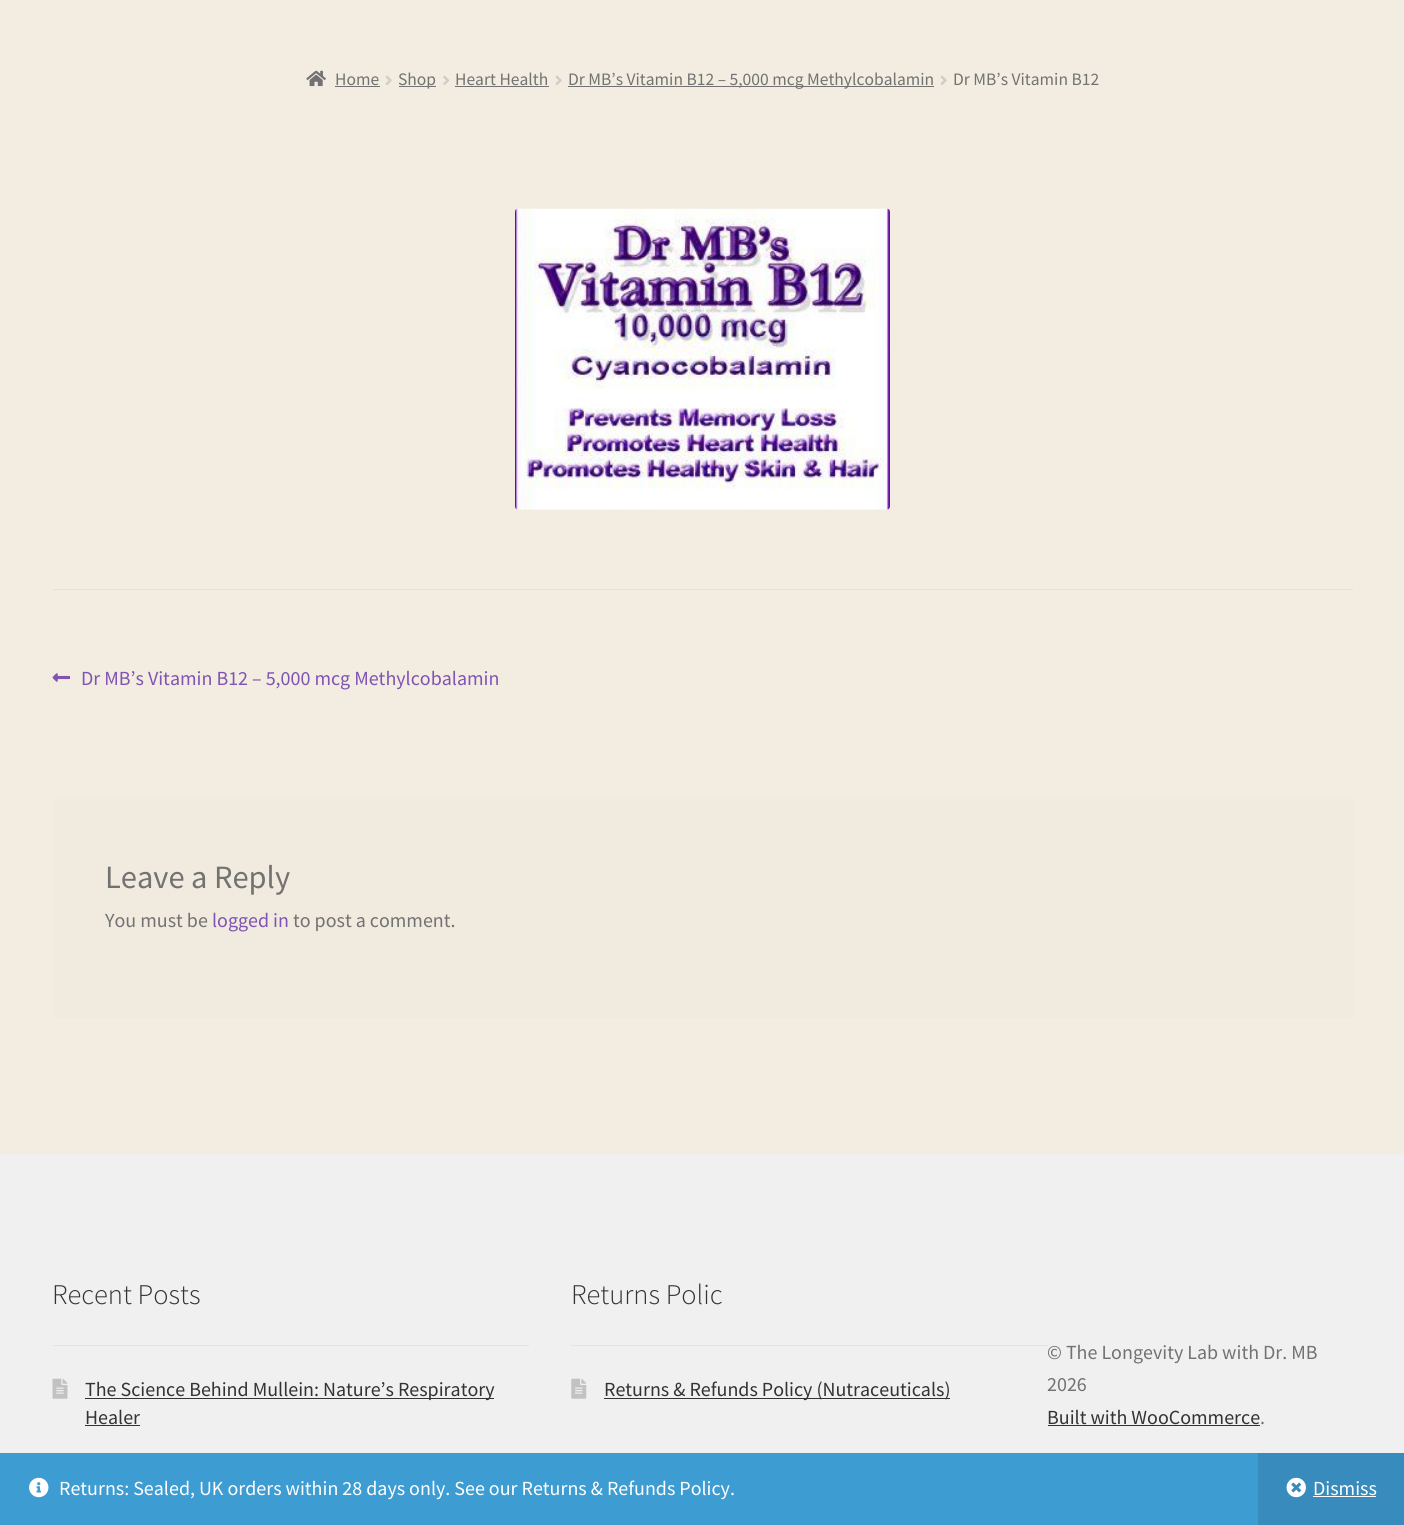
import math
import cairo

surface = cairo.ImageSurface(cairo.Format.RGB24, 1404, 1525)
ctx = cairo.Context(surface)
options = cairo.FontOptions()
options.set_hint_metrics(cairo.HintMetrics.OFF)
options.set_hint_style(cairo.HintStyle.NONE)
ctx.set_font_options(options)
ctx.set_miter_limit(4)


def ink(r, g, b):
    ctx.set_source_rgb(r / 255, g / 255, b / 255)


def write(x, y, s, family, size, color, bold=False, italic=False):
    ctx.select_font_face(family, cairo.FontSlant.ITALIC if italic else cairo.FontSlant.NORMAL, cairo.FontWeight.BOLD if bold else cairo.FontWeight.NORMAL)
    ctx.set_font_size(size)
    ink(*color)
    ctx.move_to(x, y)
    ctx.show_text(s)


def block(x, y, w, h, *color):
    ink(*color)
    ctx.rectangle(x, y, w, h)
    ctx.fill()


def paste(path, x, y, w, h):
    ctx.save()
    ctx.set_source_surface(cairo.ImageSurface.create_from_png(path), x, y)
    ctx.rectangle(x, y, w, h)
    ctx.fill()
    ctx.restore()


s1 = dict(family="Source Sans Pro", size=17.5, color=(114, 114, 114))
s2 = dict(family="Source Sans Pro", size=20, color=(127, 84, 179))
s3 = dict(family="Source Sans Pro", size=32.5, color=(114, 114, 114))
s4 = dict(family="Source Sans Pro", size=20, color=(114, 114, 114))
s5 = dict(family="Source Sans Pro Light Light", size=28.5, color=(51, 51, 51))
s6 = dict(family="Source Sans Pro", size=20, color=(51, 51, 51))
s7 = dict(family="Source Sans Pro", size=20, color=(255, 255, 255))

ink(243, 236, 225)
ctx.paint()
paste("pic1.png", 306, 70, 20, 17)
write(335, 85, "Home", **s1)
block(335, 86, 45, 1, 114, 114, 114)
paste("pic2.png", 385, 75, 7, 10)
block(399, 86, 37, 1, 114, 114, 114)
write(398, 85, "Shop", **s1)
paste("pic3.png", 443, 75, 7, 10)
write(455, 85, "Heart Health", **s1)
block(455, 86, 94, 1, 114, 114, 114)
paste("pic2.png", 555, 75, 7, 10)
block(568, 86, 366, 1, 114, 114, 114)
write(568, 85, "Dr MB’s Vitamin B12 – 5,000 mcg Methylcobalamin", **s1)
paste("pic2.png", 940, 75, 7, 10)
write(953, 85, "Dr MB’s Vitamin B12", **s1)
paste("pic4.png", 515, 208, 375, 302)
block(53, 589, 1300, 1, 231, 224, 214)
paste("pic5.png", 52, 673, 19, 9)
write(81, 685, "Dr MB’s Vitamin B12 – 5,000 mcg Methylcobalamin", **s2)
block(53, 799, 1300, 219, 241, 234, 222)
write(105, 888, "Leave a Reply", **s3)
write(105, 927, "You must be", **s4)
write(212, 927, "logged in", **s2)
write(293, 927, "to post a comment.", **s4)
block(0, 1154, 1404, 299, 240, 240, 240)
block(53, 1345, 476, 1, 228, 228, 228)
write(52, 1304, "Recent Posts", **s5)
paste("pic6.png", 52, 1378, 16, 21)
block(85, 1398, 409, 1, 51, 51, 51)
write(85, 1396, "The Science Behind Mullein: Nature’s Respiratory", **s6)
write(85, 1424, "Healer", **s6)
block(85, 1425, 55, 1, 51, 51, 51)
block(571, 1345, 477, 1, 228, 228, 228)
write(571, 1304, "Returns Polic", **s5)
paste("pic7.png", 571, 1378, 16, 21)
block(604, 1398, 346, 1, 51, 51, 51)
write(604, 1396, "Returns & Refunds Policy (Nutraceuticals)", **s6)
write(1047, 1359, "© The Longevity Lab with Dr. MB", **s4)
write(1047, 1391, "2026", **s4)
write(1047, 1424, "Built with WooCommerce", **s6)
block(1048, 1425, 212, 1, 51, 51, 51)
write(1260, 1424, ".", **s4)
block(0, 1453, 1258, 72, 61, 156, 210)
paste("pic8.png", 29, 1477, 20, 21)
write(59, 1495, "Returns: Sealed, UK orders within 28 days only. See our Returns & Refunds Policy.", **s7)
block(1258, 1453, 146, 72, 55, 140, 189)
paste("pic9.png", 1286, 1477, 20, 21)
write(1313, 1495, "Dismiss", **s7)
block(1313, 1496, 63, 1, 255, 255, 255)
surface.write_to_png("screenshot.png")
